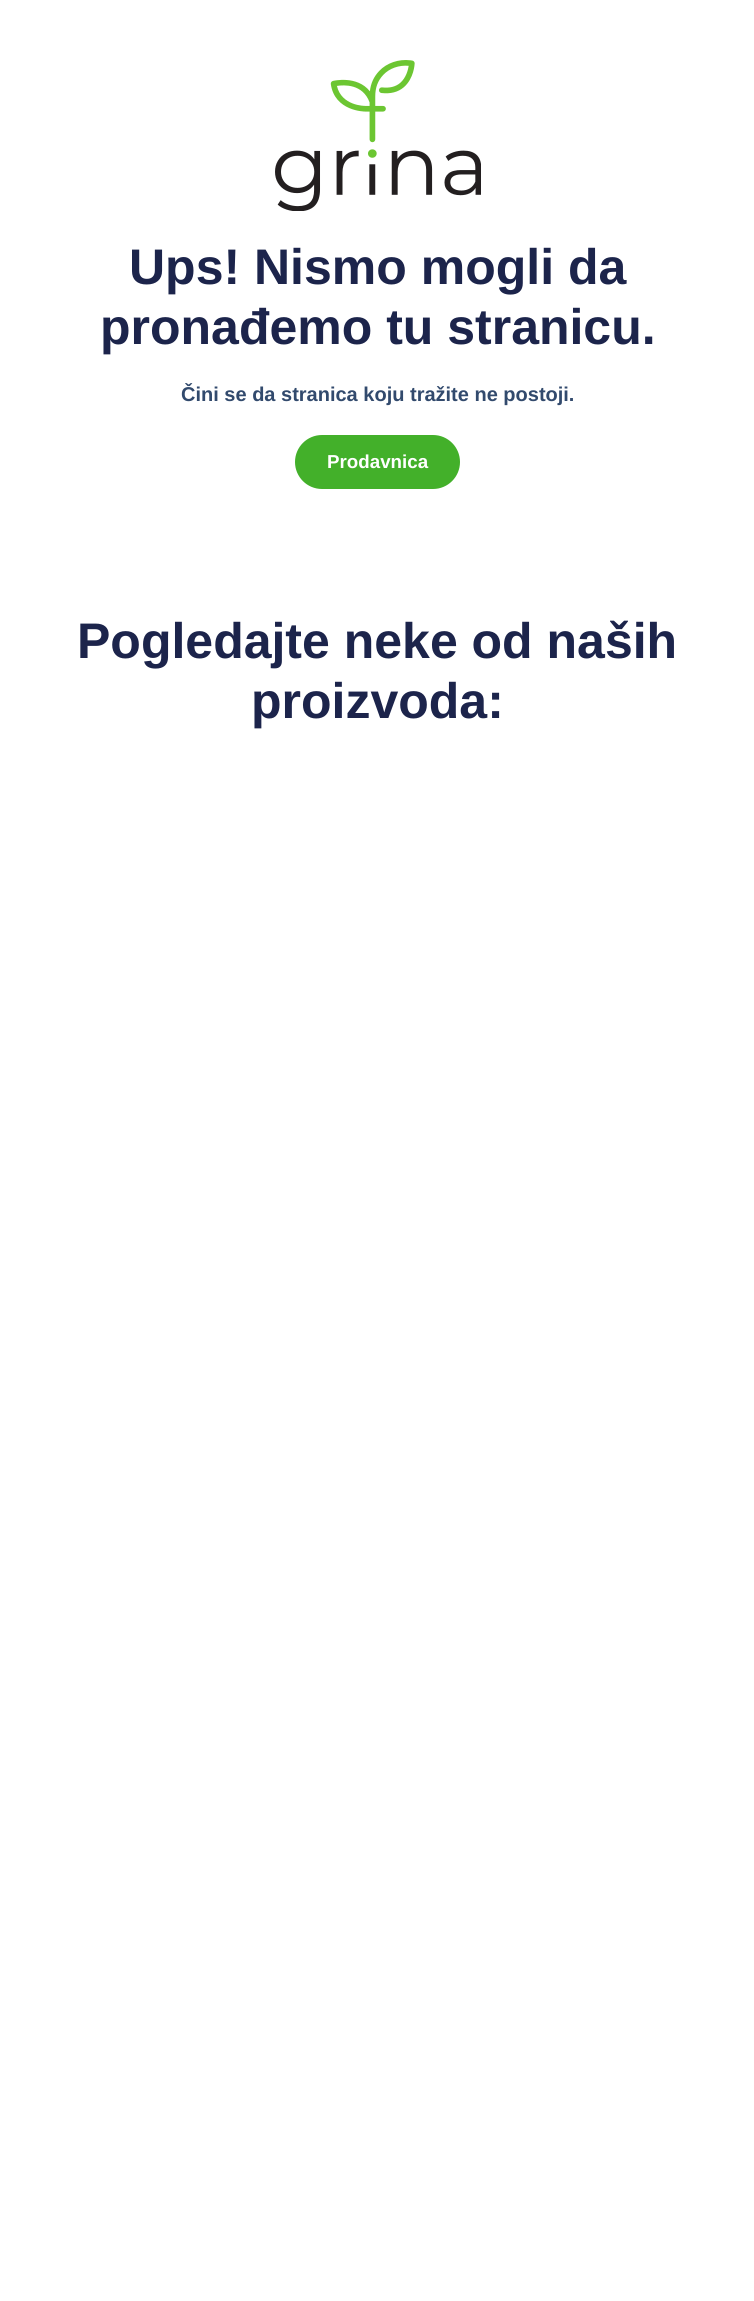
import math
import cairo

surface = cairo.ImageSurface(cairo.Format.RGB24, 754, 2301)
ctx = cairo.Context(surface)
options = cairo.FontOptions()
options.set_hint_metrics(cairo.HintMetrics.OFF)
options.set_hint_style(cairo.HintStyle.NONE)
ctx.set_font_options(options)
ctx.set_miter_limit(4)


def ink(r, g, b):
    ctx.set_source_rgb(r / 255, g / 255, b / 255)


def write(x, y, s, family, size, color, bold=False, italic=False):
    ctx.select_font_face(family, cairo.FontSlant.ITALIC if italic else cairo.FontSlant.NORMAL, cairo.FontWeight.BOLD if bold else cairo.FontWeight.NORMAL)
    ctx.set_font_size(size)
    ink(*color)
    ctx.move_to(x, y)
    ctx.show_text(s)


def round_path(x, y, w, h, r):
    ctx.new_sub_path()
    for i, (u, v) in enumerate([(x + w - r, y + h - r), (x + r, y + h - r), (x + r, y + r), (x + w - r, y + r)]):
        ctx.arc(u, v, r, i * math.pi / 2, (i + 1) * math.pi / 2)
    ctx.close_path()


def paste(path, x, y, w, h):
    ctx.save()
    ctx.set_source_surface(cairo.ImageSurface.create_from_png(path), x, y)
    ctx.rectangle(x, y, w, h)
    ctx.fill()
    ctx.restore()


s1 = dict(family="Liberation Sans", size=50, color=(28, 36, 75), bold=True)
s2 = dict(family="Liberation Sans", size=20, color=(50, 74, 109), bold=True)
s3 = dict(family="Liberation Sans", size=18.75, color=(255, 255, 255), bold=True)

ink(255, 255, 255)
ctx.paint()
paste("pic1.png", 275, 60, 206, 151)
write(129, 284, "Ups! Nismo mogli da", **s1)
write(100, 344, "pronađemo tu stranicu.", **s1)
write(181, 401, "Čini se da stranica koju tražite ne postoji.", **s2)
ink(67, 176, 42)
round_path(296.5, 436.5, 162, 51, 25.5)
ctx.fill_preserve()
ctx.set_line_width(3)
ctx.stroke()
write(327, 468, "Prodavnica", **s3)
write(77, 658, "Pogledajte neke od naših", **s1)
write(251, 718, "proizvoda:", **s1)
surface.write_to_png("screenshot.png")
